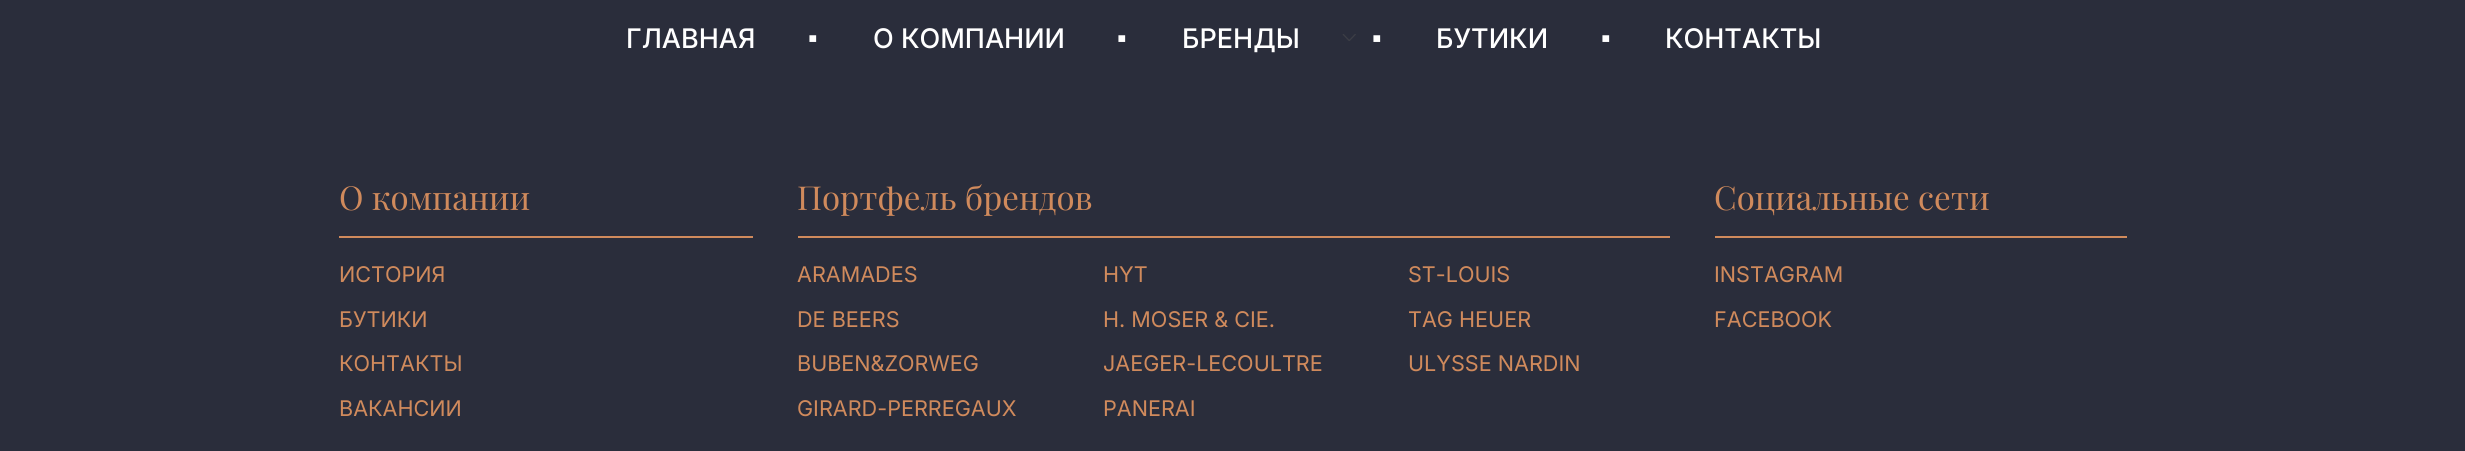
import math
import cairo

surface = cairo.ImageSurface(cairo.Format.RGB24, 2465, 451)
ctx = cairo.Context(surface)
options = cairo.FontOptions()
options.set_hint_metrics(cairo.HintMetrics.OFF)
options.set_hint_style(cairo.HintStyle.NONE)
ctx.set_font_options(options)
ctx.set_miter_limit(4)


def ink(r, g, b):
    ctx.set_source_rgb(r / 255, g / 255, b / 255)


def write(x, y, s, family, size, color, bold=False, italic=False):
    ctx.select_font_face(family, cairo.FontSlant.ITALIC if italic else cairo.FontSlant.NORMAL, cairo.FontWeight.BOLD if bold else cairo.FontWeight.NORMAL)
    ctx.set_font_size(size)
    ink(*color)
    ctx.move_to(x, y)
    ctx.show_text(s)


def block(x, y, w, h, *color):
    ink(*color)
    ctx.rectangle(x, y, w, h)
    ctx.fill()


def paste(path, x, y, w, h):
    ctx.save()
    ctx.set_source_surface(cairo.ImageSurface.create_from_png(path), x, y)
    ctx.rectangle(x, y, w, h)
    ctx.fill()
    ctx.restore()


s1 = dict(family="Inter Medium", size=27, color=(255, 255, 255))
s2 = dict(family="Liberation Sans", size=27, color=(255, 255, 255), bold=True)
s3 = dict(family="Playfair Display", size=33, color=(208, 138, 92))
s4 = dict(family="Inter", size=21.6, color=(208, 138, 92))

ink(42, 45, 59)
ctx.paint()
write(626, 48, "ГЛАВНАЯ", **s1)
write(808, 47, "▪", **s2)
write(873, 48, "О КОМПАНИИ", **s1)
write(1117, 47, "▪", **s2)
write(1182, 48, "БРЕНДЫ", **s1)
paste("pic1.png", 1342, 34, 14, 7)
write(1372, 47, "▪", **s2)
write(1436, 48, "БУТИКИ", **s1)
write(1601, 47, "▪", **s2)
write(1665, 48, "КОНТАКТЫ", **s1)
block(339, 236, 414, 2, 208, 138, 92)
write(339, 210, "О компании", **s3)
write(339, 282, "ИСТОРИЯ", **s4)
write(339, 327, "БУТИКИ", **s4)
write(339, 371, "КОНТАКТЫ", **s4)
write(339, 416, "ВАКАНСИИ", **s4)
block(798, 236, 872, 2, 208, 138, 92)
write(797, 210, "Портфель брендов", **s3)
write(797, 282, "ARAMADES", **s4)
write(797, 327, "DE BEERS", **s4)
write(797, 371, "BUBEN&ZORWEG", **s4)
write(797, 416, "GIRARD-PERREGAUX", **s4)
write(1103, 282, "HYT", **s4)
write(1103, 327, "H. MOSER & CIE.", **s4)
write(1103, 371, "JAEGER-LECOULTRE", **s4)
write(1103, 416, "PANERAI", **s4)
write(1408, 282, "ST-LOUIS", **s4)
write(1408, 327, "TAG HEUER", **s4)
write(1408, 371, "ULYSSE NARDIN", **s4)
block(1715, 236, 412, 2, 208, 138, 92)
write(1714, 210, "Социальные сети", **s3)
write(1714, 282, "INSTAGRAM", **s4)
write(1714, 327, "FACEBOOK", **s4)
surface.write_to_png("screenshot.png")
